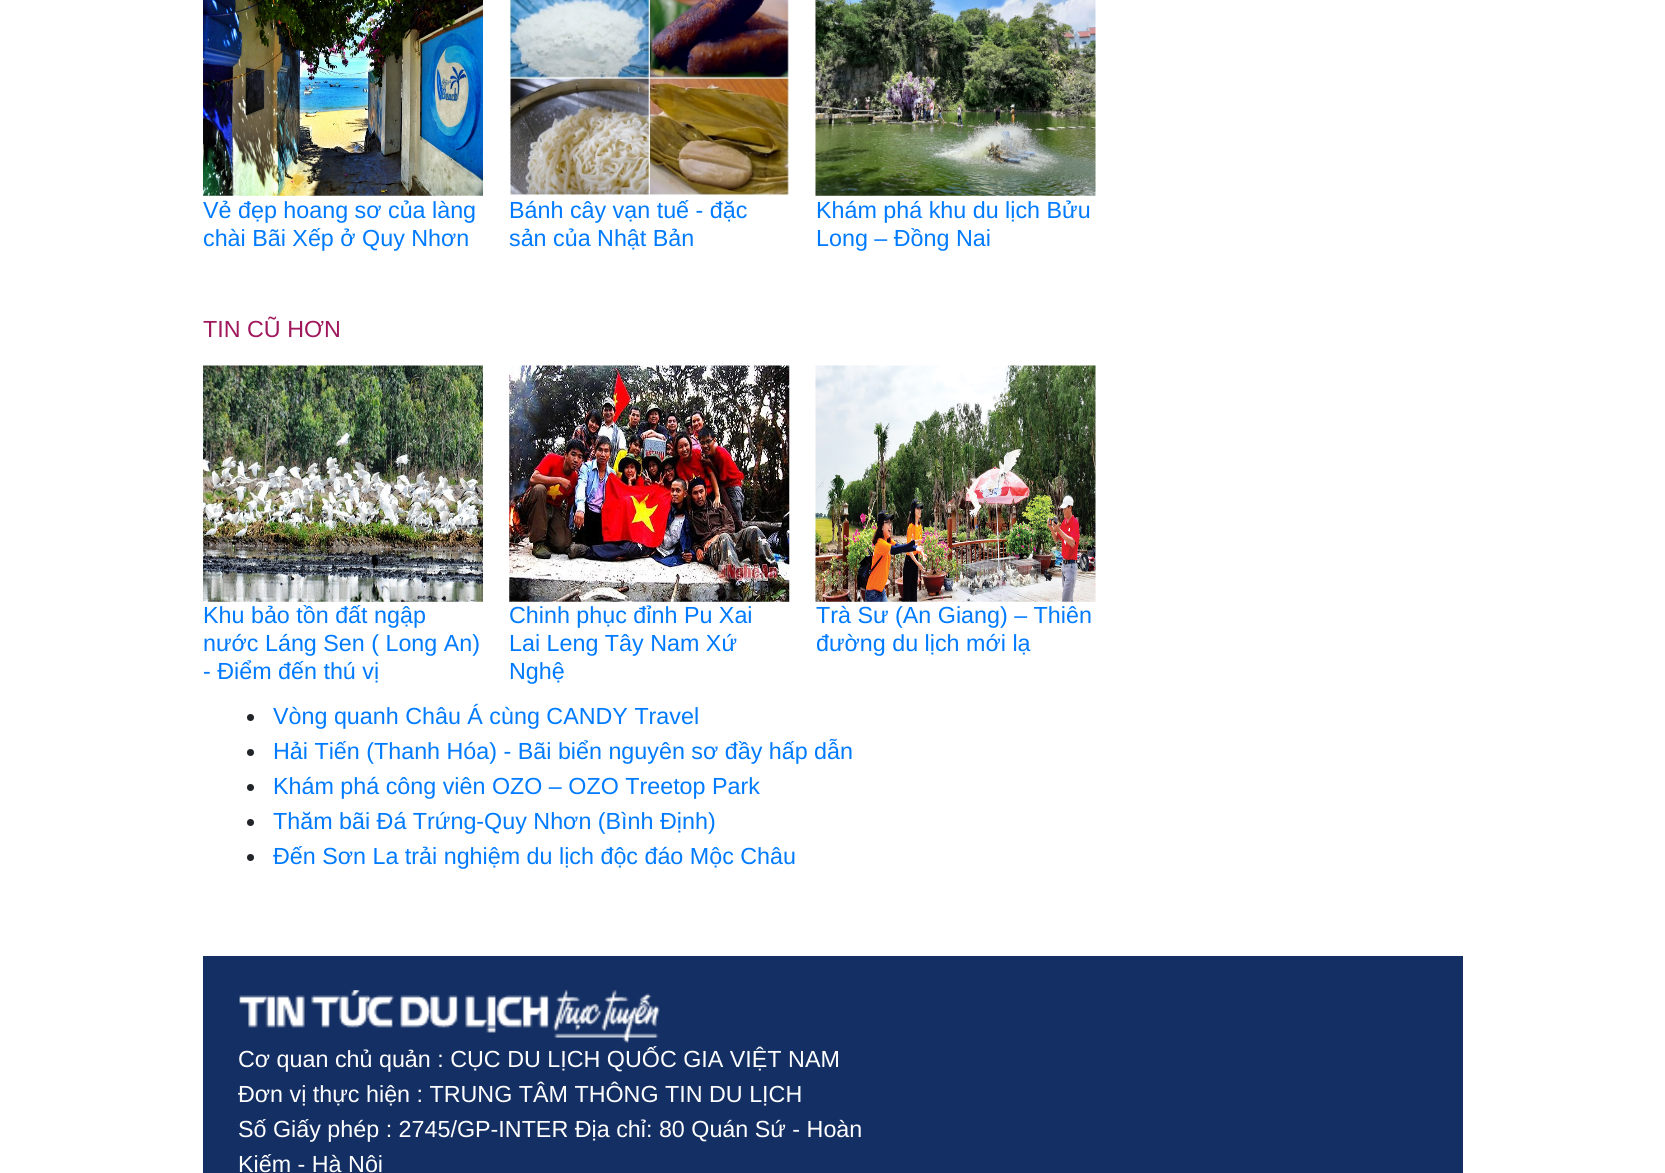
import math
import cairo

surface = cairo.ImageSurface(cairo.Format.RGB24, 1665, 1173)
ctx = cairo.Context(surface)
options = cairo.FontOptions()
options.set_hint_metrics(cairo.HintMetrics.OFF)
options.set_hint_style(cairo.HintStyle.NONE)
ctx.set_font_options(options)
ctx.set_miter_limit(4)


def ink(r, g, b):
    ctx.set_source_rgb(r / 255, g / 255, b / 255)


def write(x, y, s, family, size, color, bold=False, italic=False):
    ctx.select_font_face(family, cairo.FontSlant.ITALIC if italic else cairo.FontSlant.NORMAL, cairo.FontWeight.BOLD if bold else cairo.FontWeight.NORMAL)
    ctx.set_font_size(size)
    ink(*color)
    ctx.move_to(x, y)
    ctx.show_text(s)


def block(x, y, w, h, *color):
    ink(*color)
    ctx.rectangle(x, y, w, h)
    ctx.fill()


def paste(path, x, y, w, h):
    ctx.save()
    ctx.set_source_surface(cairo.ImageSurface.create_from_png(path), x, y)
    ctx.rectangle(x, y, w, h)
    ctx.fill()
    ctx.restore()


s1 = dict(family="Liberation Sans", size=23.3, color=(0, 123, 255))
s2 = dict(family="Liberation Sans", size=23.3, color=(159, 23, 92))
s3 = dict(family="Liberation Sans", size=23.3, color=(255, 255, 255))

ink(255, 255, 255)
ctx.paint()
paste("pic1.png", 203, 0, 280, 196)
write(203, 218, "Vẻ đẹp hoang sơ của làng", **s1)
write(203, 246, "chài Bãi Xếp ở Quy Nhơn", **s1)
paste("pic2.png", 509, 0, 280, 196)
write(509, 218, "Bánh cây vạn tuế - đặc", **s1)
write(509, 246, "sản của Nhật Bản", **s1)
paste("pic3.png", 815, 0, 281, 196)
write(816, 218, "Khám phá khu du lịch Bửu", **s1)
write(816, 246, "Long – Đồng Nai", **s1)
write(203, 337, "TIN CŨ HƠN", **s2)
paste("pic4.png", 203, 365, 280, 237)
write(203, 623, "Khu bảo tồn đất ngập", **s1)
write(203, 651, "nước Láng Sen ( Long An)", **s1)
write(203, 679, "- Điểm đến thú vị", **s1)
paste("pic5.png", 509, 365, 281, 237)
write(509, 623, "Chinh phục đỉnh Pu Xai", **s1)
write(509, 651, "Lai Leng Tây Nam Xứ", **s1)
write(509, 679, "Nghệ", **s1)
paste("pic6.png", 815, 365, 281, 237)
write(816, 623, "Trà Sư (An Giang) – Thiên", **s1)
write(816, 651, "đường du lịch mới lạ", **s1)
ink(33, 37, 41)
ctx.new_path()
ctx.arc(250.5, 717.5, 3.5, 0, 2 * math.pi)
ctx.fill()
write(273, 724, "Vòng quanh Châu Á cùng CANDY Travel", **s1)
ink(33, 37, 41)
ctx.new_path()
ctx.arc(250.5, 752.5, 3.5, 0, 2 * math.pi)
ctx.fill()
write(273, 759, "Hải Tiến (Thanh Hóa) - Bãi biển nguyên sơ đầy hấp dẫn", **s1)
ink(33, 37, 41)
ctx.new_path()
ctx.arc(250.5, 787.5, 3.5, 0, 2 * math.pi)
ctx.fill()
write(273, 794, "Khám phá công viên OZO – OZO Treetop Park", **s1)
ink(33, 37, 41)
ctx.new_path()
ctx.arc(250.5, 822.5, 3.5, 0, 2 * math.pi)
ctx.fill()
write(273, 829, "Thăm bãi Đá Trứng-Quy Nhơn (Bình Định)", **s1)
ink(33, 37, 41)
ctx.new_path()
ctx.arc(250.5, 857.5, 3.5, 0, 2 * math.pi)
ctx.fill()
write(273, 864, "Đến Sơn La trải nghiệm du lịch độc đáo Mộc Châu", **s1)
block(203, 956, 1260, 217, 20, 47, 100)
paste("pic7.png", 239, 990, 421, 53)
write(238, 1067, "Cơ quan chủ quản : CỤC DU LỊCH QUỐC GIA VIỆT NAM", **s3)
write(238, 1102, "Đơn vị thực hiện : TRUNG TÂM THÔNG TIN DU LỊCH", **s3)
write(238, 1137, "Số Giấy phép : 2745/GP-INTER Địa chỉ: 80 Quán Sứ - Hoàn", **s3)
write(238, 1172, "Kiếm - Hà Nội", **s3)
surface.write_to_png("screenshot.png")
